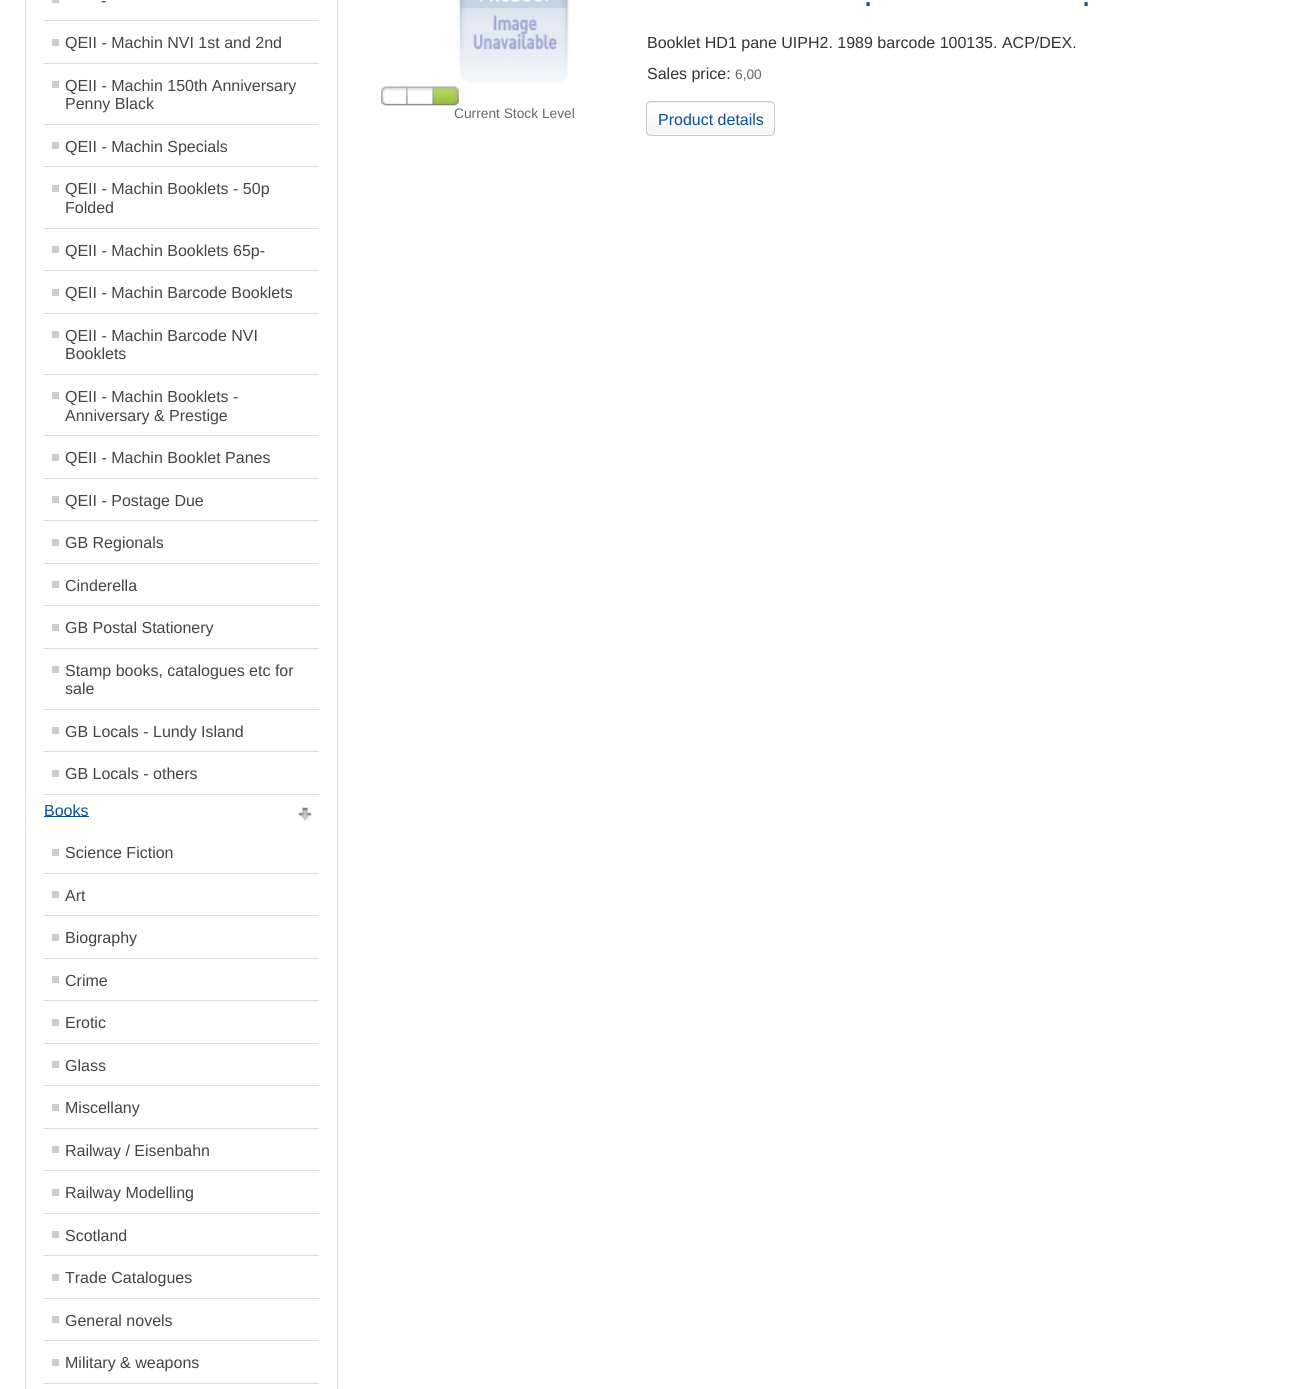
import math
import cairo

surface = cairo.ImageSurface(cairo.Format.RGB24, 1297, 1389)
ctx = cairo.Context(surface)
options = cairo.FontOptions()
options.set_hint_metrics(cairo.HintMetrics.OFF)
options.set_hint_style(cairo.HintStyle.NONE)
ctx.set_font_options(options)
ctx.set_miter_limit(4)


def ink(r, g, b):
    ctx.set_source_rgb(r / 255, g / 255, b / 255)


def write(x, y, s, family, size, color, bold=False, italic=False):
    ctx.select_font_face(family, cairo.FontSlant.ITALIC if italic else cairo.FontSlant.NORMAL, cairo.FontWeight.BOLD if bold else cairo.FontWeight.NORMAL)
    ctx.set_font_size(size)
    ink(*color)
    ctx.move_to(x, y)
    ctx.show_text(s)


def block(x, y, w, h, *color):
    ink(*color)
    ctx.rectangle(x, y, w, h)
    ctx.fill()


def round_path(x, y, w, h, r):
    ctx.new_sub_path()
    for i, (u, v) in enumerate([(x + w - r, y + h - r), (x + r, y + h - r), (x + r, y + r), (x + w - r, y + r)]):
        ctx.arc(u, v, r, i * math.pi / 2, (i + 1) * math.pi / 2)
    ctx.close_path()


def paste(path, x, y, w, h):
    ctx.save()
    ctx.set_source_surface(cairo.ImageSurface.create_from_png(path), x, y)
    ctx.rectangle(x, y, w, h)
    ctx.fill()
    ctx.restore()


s1 = dict(family="Liberation Sans", size=16, color=(68, 68, 68))
s2 = dict(family="Liberation Sans", size=16, color=(9, 81, 151))
s3 = dict(family="Liberation Sans", size=13.75, color=(102, 102, 102))
s4 = dict(family="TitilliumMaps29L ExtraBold", size=26, color=(9, 81, 151))
s5 = dict(family="Liberation Sans", size=16, color=(51, 51, 51))

ink(255, 255, 255)
ctx.paint()
ctx.rectangle(25.5, -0.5, 312, 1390)
ink(221, 221, 221)
ctx.set_line_width(1)
ctx.stroke()
block(44, 20, 275, 1, 221, 221, 221)
block(52, 0, 7, 3, 204, 204, 204)
write(101, 6, "-", **s1)
block(44, 63, 275, 1, 221, 221, 221)
block(52, 39, 7, 7, 204, 204, 204)
write(65, 48, "QEII - Machin NVI 1st and 2nd", **s1)
block(44, 124, 275, 1, 221, 221, 221)
block(52, 81, 7, 7, 204, 204, 204)
write(65, 91, "QEII - Machin 150th Anniversary", **s1)
write(65, 109, "Penny Black", **s1)
block(44, 166, 275, 1, 221, 221, 221)
block(52, 142, 7, 7, 204, 204, 204)
write(65, 152, "QEII - Machin Specials", **s1)
block(44, 228, 275, 1, 221, 221, 221)
block(52, 185, 7, 7, 204, 204, 204)
write(65, 194, "QEII - Machin Booklets - 50p", **s1)
write(65, 213, "Folded", **s1)
block(44, 270, 275, 1, 221, 221, 221)
block(52, 246, 7, 7, 204, 204, 204)
write(65, 256, "QEII - Machin Booklets 65p-", **s1)
block(44, 313, 275, 1, 221, 221, 221)
block(52, 289, 7, 7, 204, 204, 204)
write(65, 298, "QEII - Machin Barcode Booklets", **s1)
block(44, 374, 275, 1, 221, 221, 221)
block(52, 331, 7, 7, 204, 204, 204)
write(65, 341, "QEII - Machin Barcode NVI", **s1)
write(65, 359, "Booklets", **s1)
block(44, 435, 275, 1, 221, 221, 221)
block(52, 392, 7, 7, 204, 204, 204)
write(65, 402, "QEII - Machin Booklets -", **s1)
write(65, 421, "Anniversary & Prestige", **s1)
block(44, 478, 275, 1, 221, 221, 221)
block(52, 454, 7, 7, 204, 204, 204)
write(65, 463, "QEII - Machin Booklet Panes", **s1)
block(44, 520, 275, 1, 221, 221, 221)
block(52, 496, 7, 7, 204, 204, 204)
write(65, 506, "QEII - Postage Due", **s1)
block(44, 563, 275, 1, 221, 221, 221)
block(52, 539, 7, 7, 204, 204, 204)
write(65, 548, "GB Regionals", **s1)
block(44, 605, 275, 1, 221, 221, 221)
block(52, 581, 7, 7, 204, 204, 204)
write(65, 591, "Cinderella", **s1)
block(44, 648, 275, 1, 221, 221, 221)
block(52, 624, 7, 7, 204, 204, 204)
write(65, 633, "GB Postal Stationery", **s1)
block(44, 709, 275, 1, 221, 221, 221)
block(52, 666, 7, 7, 204, 204, 204)
write(65, 676, "Stamp books, catalogues etc for", **s1)
write(65, 694, "sale", **s1)
block(44, 751, 275, 1, 221, 221, 221)
block(52, 727, 7, 7, 204, 204, 204)
write(65, 737, "GB Locals - Lundy Island", **s1)
block(44, 794, 275, 1, 221, 221, 221)
block(52, 770, 7, 7, 204, 204, 204)
write(65, 779, "GB Locals - others", **s1)
block(44, 816, 45, 1, 9, 81, 151)
write(44, 816, "Books", **s2)
paste("pic1.png", 298, 807, 14, 14)
block(44, 873, 275, 1, 221, 221, 221)
block(52, 849, 7, 7, 204, 204, 204)
write(65, 858, "Science Fiction", **s1)
block(44, 915, 275, 1, 221, 221, 221)
block(52, 891, 7, 7, 204, 204, 204)
write(65, 901, "Art", **s1)
block(44, 958, 275, 1, 221, 221, 221)
block(52, 934, 7, 7, 204, 204, 204)
write(65, 943, "Biography", **s1)
block(44, 1000, 275, 1, 221, 221, 221)
block(52, 976, 7, 7, 204, 204, 204)
write(65, 986, "Crime", **s1)
block(44, 1043, 275, 1, 221, 221, 221)
block(52, 1019, 7, 7, 204, 204, 204)
write(65, 1028, "Erotic", **s1)
block(44, 1085, 275, 1, 221, 221, 221)
block(52, 1061, 7, 7, 204, 204, 204)
write(65, 1071, "Glass", **s1)
block(44, 1128, 275, 1, 221, 221, 221)
block(52, 1104, 7, 7, 204, 204, 204)
write(65, 1113, "Miscellany", **s1)
block(44, 1170, 275, 1, 221, 221, 221)
block(52, 1146, 7, 7, 204, 204, 204)
write(65, 1156, "Railway / Eisenbahn", **s1)
block(44, 1213, 275, 1, 221, 221, 221)
block(52, 1189, 7, 7, 204, 204, 204)
write(65, 1198, "Railway Modelling", **s1)
block(44, 1255, 275, 1, 221, 221, 221)
block(52, 1231, 7, 7, 204, 204, 204)
write(65, 1241, "Scotland", **s1)
block(44, 1298, 275, 1, 221, 221, 221)
block(52, 1274, 7, 7, 204, 204, 204)
write(65, 1283, "Trade Catalogues", **s1)
block(44, 1340, 275, 1, 221, 221, 221)
block(52, 1316, 7, 7, 204, 204, 204)
write(65, 1326, "General novels", **s1)
block(44, 1383, 275, 1, 221, 221, 221)
block(52, 1359, 7, 7, 204, 204, 204)
write(65, 1368, "Military & weapons", **s1)
paste("pic2.png", 457, 0, 113, 83)
paste("pic3.png", 381, 86, 78, 20)
write(454, 118, "Current Stock Level", **s3)
write(865, 6, ".", **s4)
write(1083, 6, ".", **s4)
write(647, 48, "Booklet HD1 pane UIPH2. 1989 barcode 100135. ACP/DEX.", **s5)
write(647, 79, "Sales price:", **s5)
write(735, 79, "6,00", **s3)
ink(232, 232, 232)
round_path(646, 101, 129, 35, 5)
ctx.fill()
paste("pic4.png", 646, 102, 129, 34)
round_path(646.5, 101.5, 128, 34, 4.5)
ink(202, 201, 201)
ctx.stroke()
write(658, 125, "Product details", **s2)
surface.write_to_png("screenshot.png")
